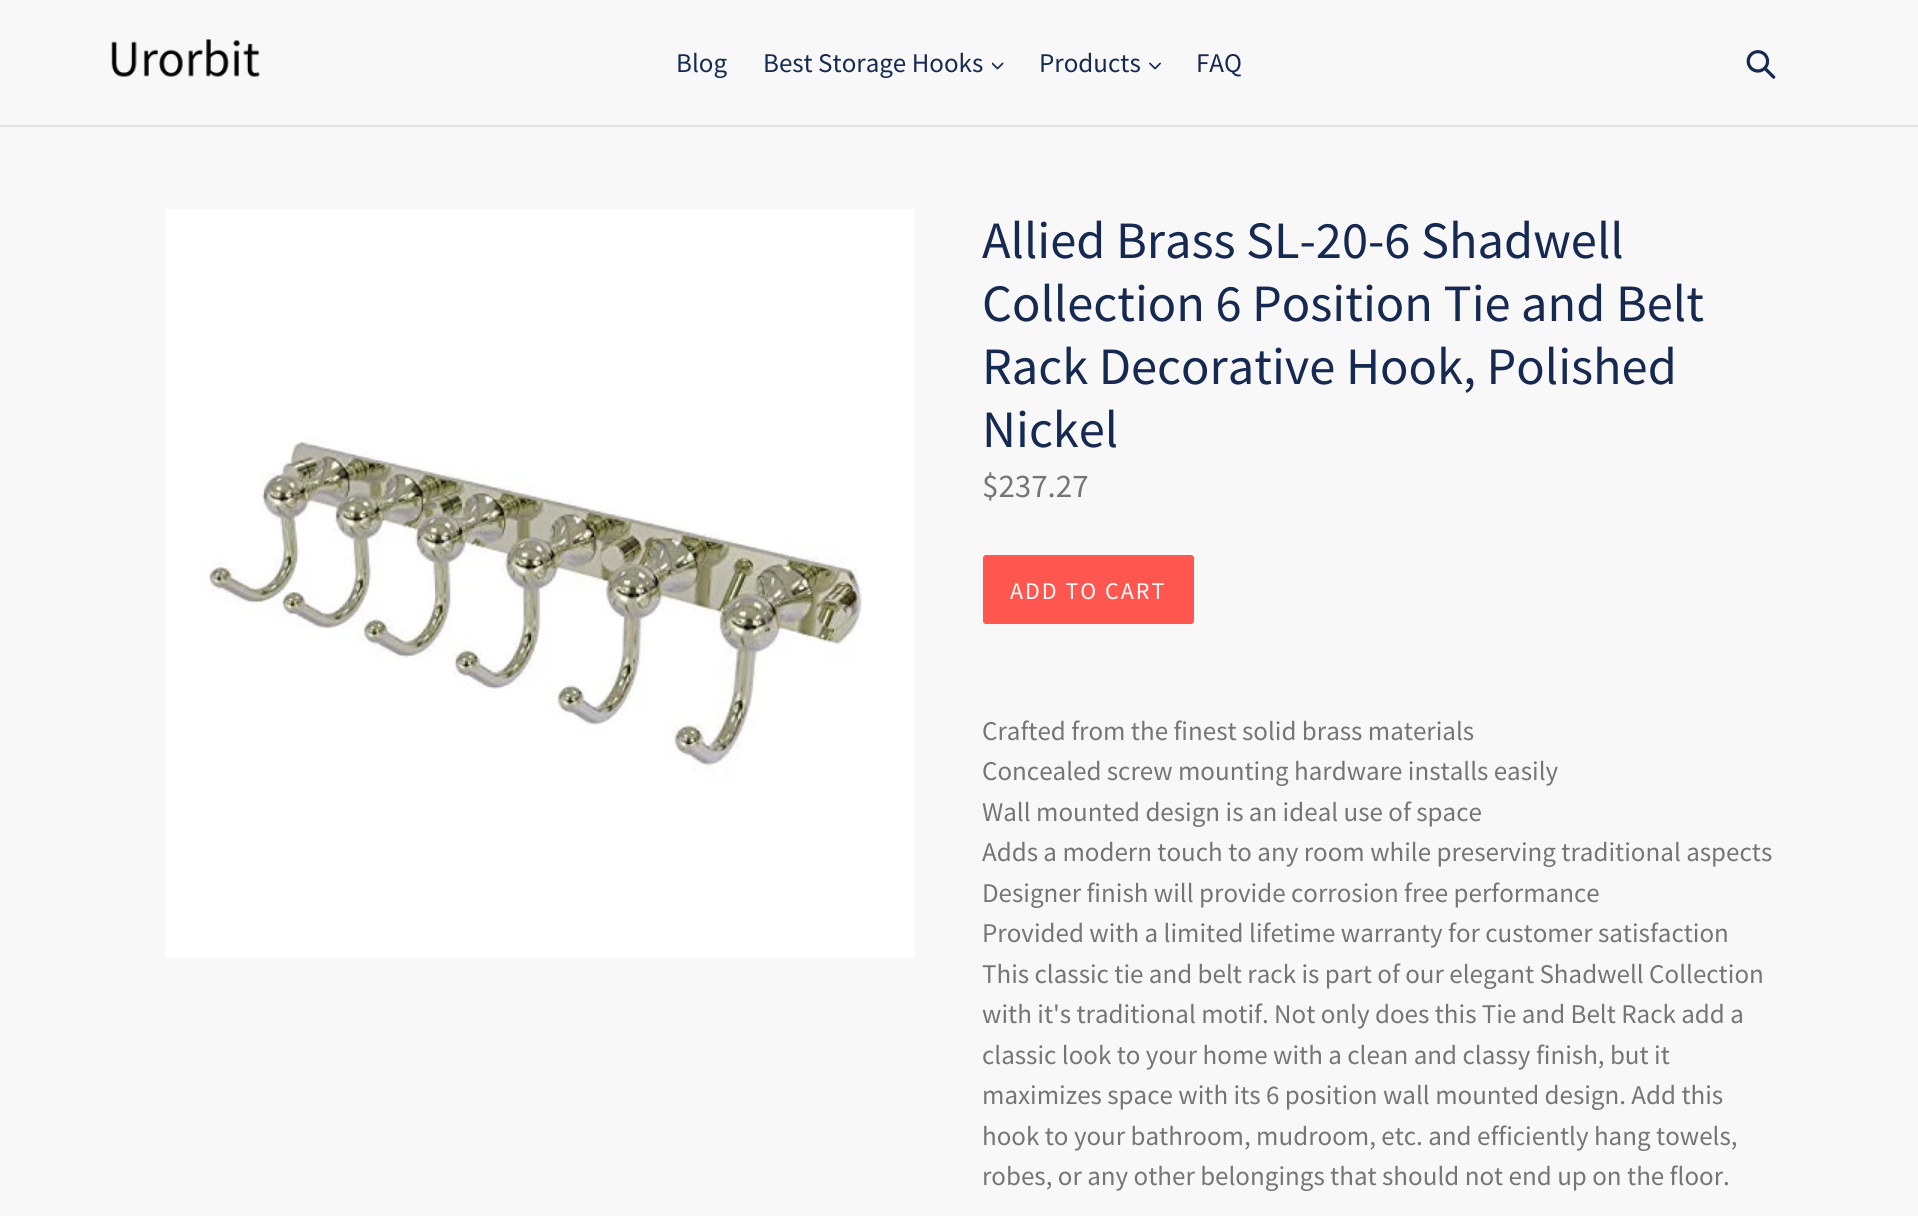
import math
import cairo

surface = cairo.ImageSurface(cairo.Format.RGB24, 1918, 1216)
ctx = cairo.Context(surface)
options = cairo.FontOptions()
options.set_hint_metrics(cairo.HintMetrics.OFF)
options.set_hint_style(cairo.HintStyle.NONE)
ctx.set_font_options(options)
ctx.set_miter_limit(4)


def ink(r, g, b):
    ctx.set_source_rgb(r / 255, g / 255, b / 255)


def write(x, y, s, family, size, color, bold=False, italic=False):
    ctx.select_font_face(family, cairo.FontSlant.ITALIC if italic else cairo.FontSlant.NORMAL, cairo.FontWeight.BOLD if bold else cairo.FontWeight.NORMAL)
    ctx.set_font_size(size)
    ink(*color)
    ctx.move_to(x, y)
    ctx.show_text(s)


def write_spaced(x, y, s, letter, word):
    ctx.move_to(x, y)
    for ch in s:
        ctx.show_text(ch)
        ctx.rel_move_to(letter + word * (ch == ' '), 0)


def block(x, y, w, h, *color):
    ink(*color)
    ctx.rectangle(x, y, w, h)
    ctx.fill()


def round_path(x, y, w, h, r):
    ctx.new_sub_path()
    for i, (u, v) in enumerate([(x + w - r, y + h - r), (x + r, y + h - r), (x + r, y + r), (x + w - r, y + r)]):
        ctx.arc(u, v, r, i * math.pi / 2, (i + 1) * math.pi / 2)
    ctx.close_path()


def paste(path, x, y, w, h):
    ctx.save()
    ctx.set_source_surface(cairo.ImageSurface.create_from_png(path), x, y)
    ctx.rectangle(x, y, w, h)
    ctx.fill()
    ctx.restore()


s1 = dict(family="Source Sans Pro", size=27, color=(22, 41, 80))
s2 = dict(family="Source Sans Pro", size=52.5, color=(22, 41, 80))
s3 = dict(family="Source Sans Pro", size=33, color=(117, 117, 117))
s4 = dict(family="Source Sans Pro", size=27, color=(117, 117, 117))

ink(248, 248, 248)
ctx.paint()
block(0, 125, 1918, 2, 228, 228, 228)
paste("pic1.png", 111, 39, 149, 38)
write(676, 72, "Blog", **s1)
write(763, 72, "Best Storage Hooks", **s1)
paste("pic2.png", 992, 62, 12, 8)
write(1039, 72, "Products", **s1)
paste("pic3.png", 1149, 62, 12, 8)
write(1196, 72, "FAQ", **s1)
paste("pic4.png", 1746, 50, 30, 29)
paste("pic5.png", 165, 209, 750, 749)
write(982, 258, "Allied Brass SL-20-6 Shadwell", **s2)
write(982, 321, "Collection 6 Position Tie and Belt", **s2)
write(982, 384, "Rack Decorative Hook, Polished", **s2)
write(982, 447, "Nickel", **s2)
write(982, 497, "$237.27", **s3)
ink(255, 87, 79)
round_path(983, 555, 211, 69, 3)
ctx.fill()
ctx.set_font_size(24)
ink(255, 255, 255)
write_spaced(1010, 599, "ADD TO CART", 2, 0)
write(982, 740, "Crafted from the finest solid brass materials", **s4)
write(982, 780, "Concealed screw mounting hardware installs easily", **s4)
write(982, 821, "Wall mounted design is an ideal use of space", **s4)
write(982, 861, "Adds a modern touch to any room while preserving traditional aspects", **s4)
write(982, 902, "Designer finish will provide corrosion free performance", **s4)
write(982, 942, "Provided with a limited lifetime warranty for customer satisfaction", **s4)
write(982, 983, "This classic tie and belt rack is part of our elegant Shadwell Collection", **s4)
write(982, 1023, "with it's traditional motif. Not only does this Tie and Belt Rack add a", **s4)
write(982, 1064, "classic look to your home with a clean and classy finish, but it", **s4)
write(982, 1104, "maximizes space with its 6 position wall mounted design. Add this", **s4)
write(982, 1145, "hook to your bathroom, mudroom, etc. and efficiently hang towels,", **s4)
write(982, 1185, "robes, or any other belongings that should not end up on the floor.", **s4)
surface.write_to_png("screenshot.png")
